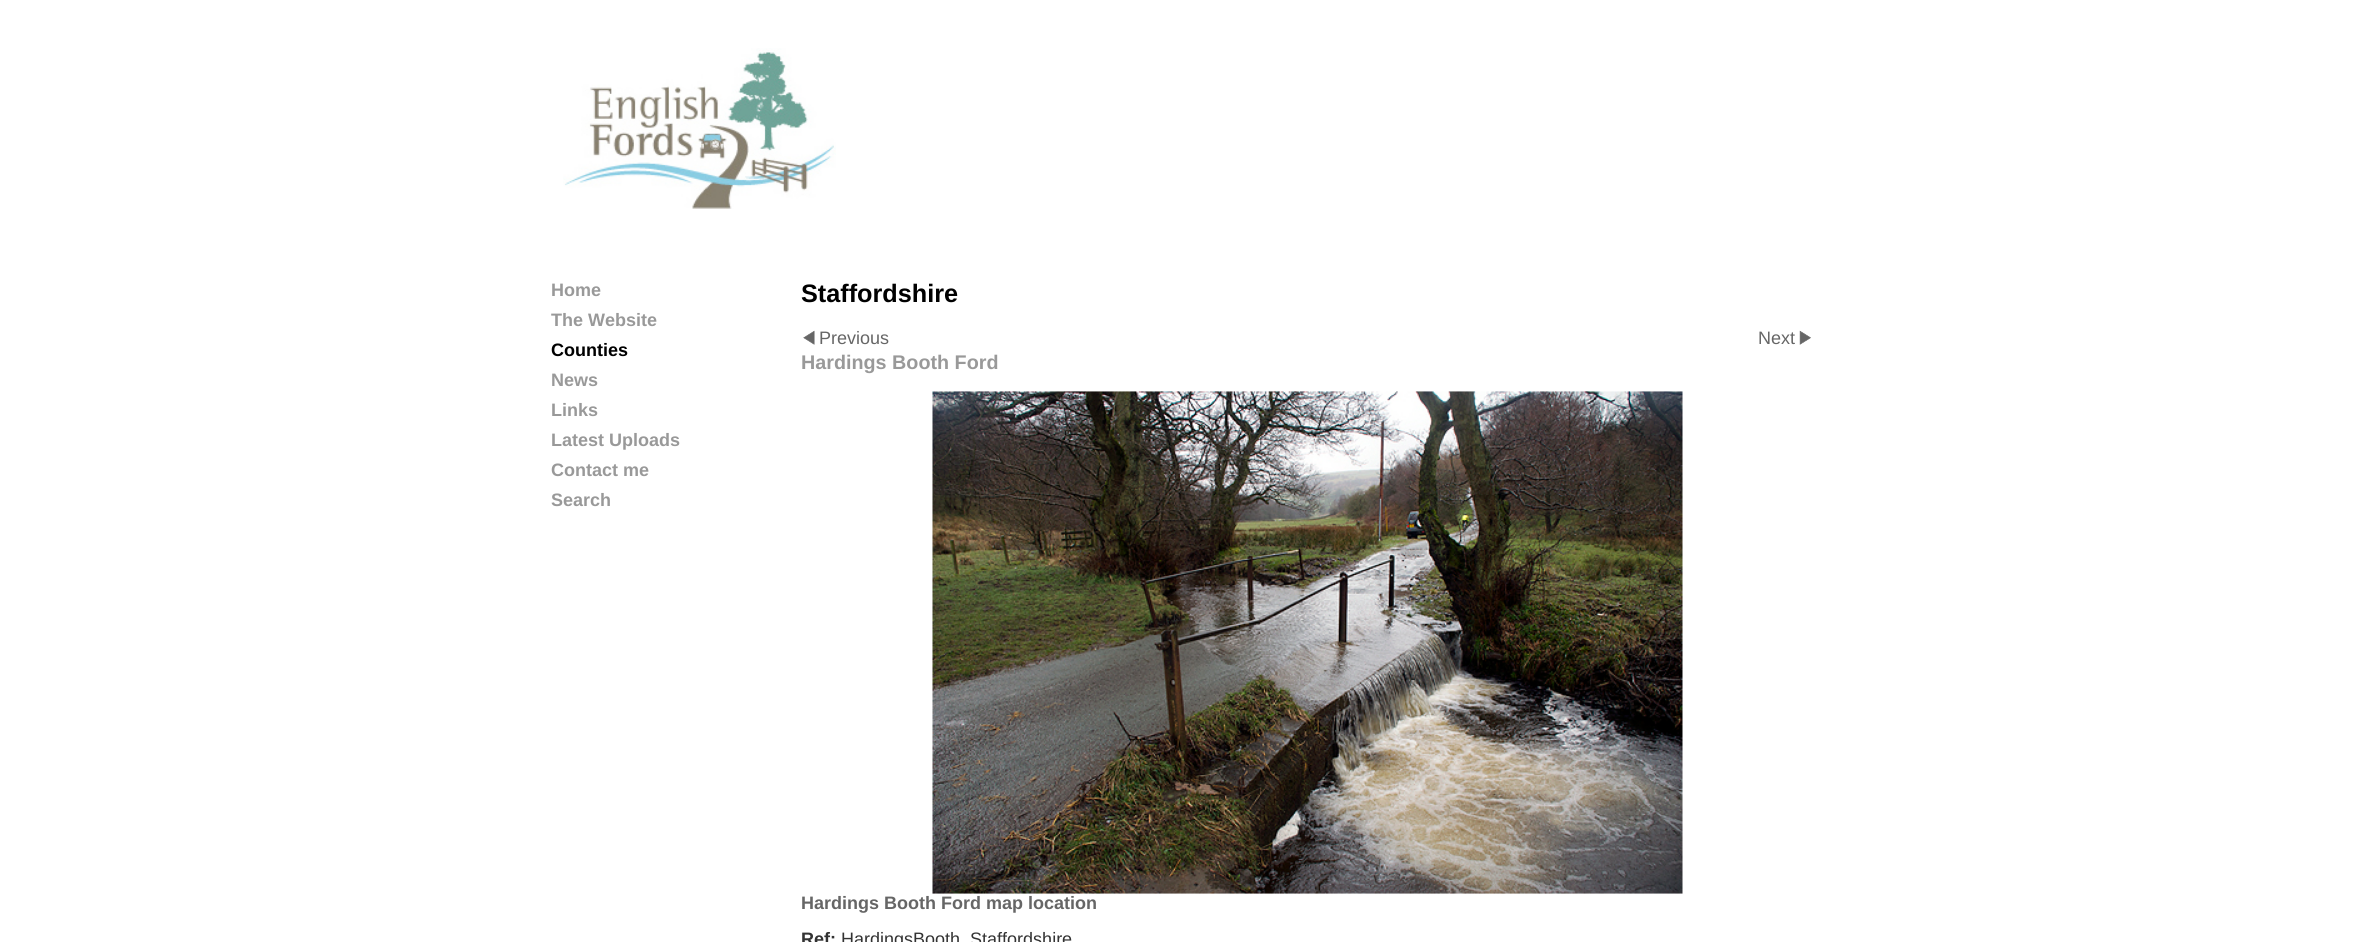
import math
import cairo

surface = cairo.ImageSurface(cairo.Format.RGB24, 2363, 942)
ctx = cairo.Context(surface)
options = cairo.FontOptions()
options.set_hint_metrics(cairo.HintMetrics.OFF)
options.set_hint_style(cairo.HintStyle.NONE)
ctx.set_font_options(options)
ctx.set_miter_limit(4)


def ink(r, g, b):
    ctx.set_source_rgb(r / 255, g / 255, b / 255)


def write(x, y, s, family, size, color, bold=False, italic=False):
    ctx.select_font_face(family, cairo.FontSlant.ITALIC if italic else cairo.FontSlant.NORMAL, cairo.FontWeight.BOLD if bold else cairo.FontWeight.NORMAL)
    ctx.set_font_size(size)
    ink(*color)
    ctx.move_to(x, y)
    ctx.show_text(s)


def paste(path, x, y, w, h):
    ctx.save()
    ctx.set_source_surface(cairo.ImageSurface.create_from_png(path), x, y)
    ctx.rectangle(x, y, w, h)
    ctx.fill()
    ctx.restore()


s1 = dict(family="Liberation Sans", size=18, color=(153, 153, 153), bold=True)
s2 = dict(family="Liberation Sans", size=18, color=(0, 0, 0), bold=True)
s3 = dict(family="Liberation Sans", size=25.25, color=(0, 0, 0), bold=True)
s4 = dict(family="Liberation Sans", size=18, color=(102, 102, 102))
s5 = dict(family="Liberation Sans", size=19.75, color=(153, 153, 153), bold=True)
s6 = dict(family="Liberation Sans", size=18, color=(102, 102, 102), bold=True)
s7 = dict(family="Liberation Sans", size=18, color=(51, 51, 51), bold=True)
s8 = dict(family="Liberation Sans", size=18, color=(51, 51, 51))

ink(255, 255, 255)
ctx.paint()
paste("pic1.png", 563, 48, 273, 161)
write(551, 296, "Home", **s1)
ctx.save()
ctx.rectangle(551, 275, 225, 240)
ctx.clip()
write(551, 326, "The Website", **s1)
ctx.restore()
write(551, 356, "Counties", **s2)
write(551, 386, "News", **s1)
write(551, 416, "Links", **s1)
write(551, 446, "Latest Uploads", **s1)
write(551, 476, "Contact me", **s1)
write(551, 506, "Search", **s1)
write(801, 302, "Staffordshire", **s3)
paste("pic2.png", 803, 330, 12, 15)
write(819, 344, "Previous", **s4)
write(1758, 344, "Next", **s4)
paste("pic3.png", 1799, 330, 12, 15)
write(801, 369, "Hardings Booth Ford", **s5)
paste("pic4.png", 932, 391, 751, 503)
write(801, 909, "Hardings Booth Ford map location", **s6)
write(801, 945, "Ref:", **s7)
write(841, 945, "HardingsBooth_Staffordshire", **s8)
surface.write_to_png("screenshot.png")
